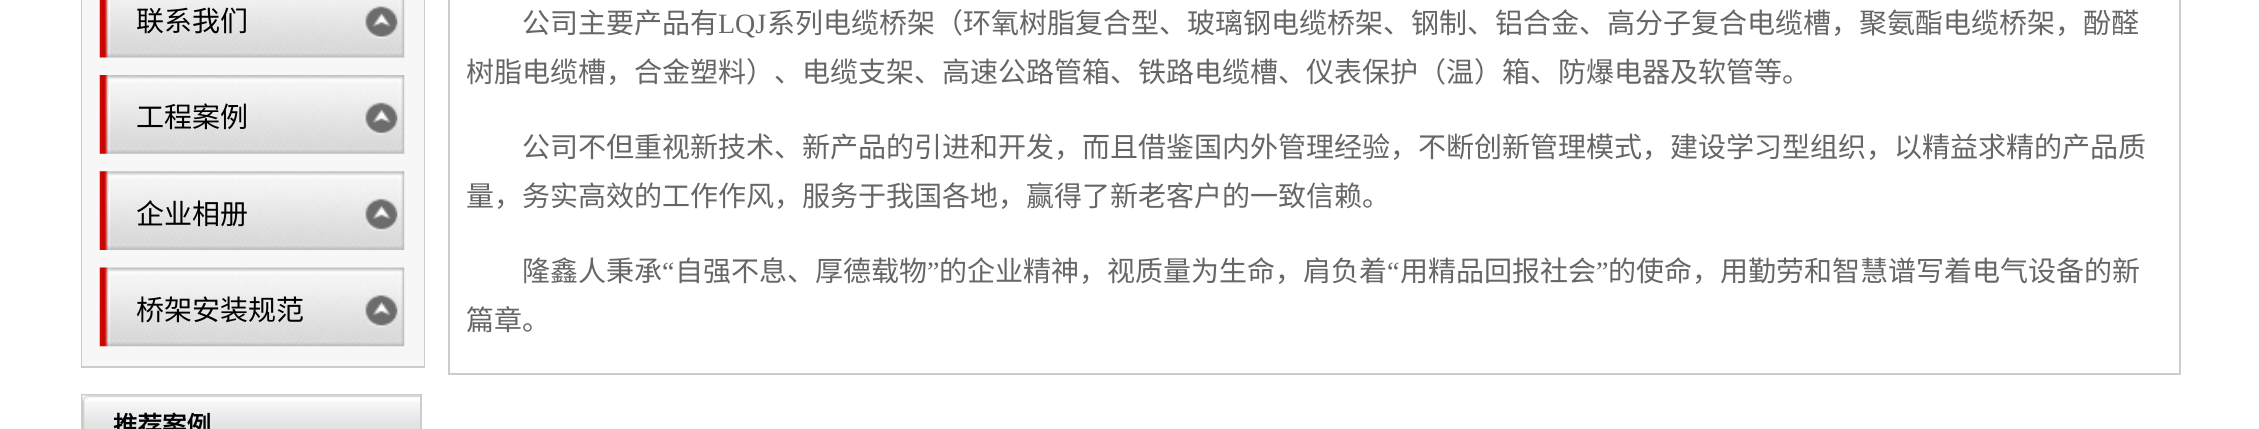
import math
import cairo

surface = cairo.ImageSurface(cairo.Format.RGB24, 2259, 429)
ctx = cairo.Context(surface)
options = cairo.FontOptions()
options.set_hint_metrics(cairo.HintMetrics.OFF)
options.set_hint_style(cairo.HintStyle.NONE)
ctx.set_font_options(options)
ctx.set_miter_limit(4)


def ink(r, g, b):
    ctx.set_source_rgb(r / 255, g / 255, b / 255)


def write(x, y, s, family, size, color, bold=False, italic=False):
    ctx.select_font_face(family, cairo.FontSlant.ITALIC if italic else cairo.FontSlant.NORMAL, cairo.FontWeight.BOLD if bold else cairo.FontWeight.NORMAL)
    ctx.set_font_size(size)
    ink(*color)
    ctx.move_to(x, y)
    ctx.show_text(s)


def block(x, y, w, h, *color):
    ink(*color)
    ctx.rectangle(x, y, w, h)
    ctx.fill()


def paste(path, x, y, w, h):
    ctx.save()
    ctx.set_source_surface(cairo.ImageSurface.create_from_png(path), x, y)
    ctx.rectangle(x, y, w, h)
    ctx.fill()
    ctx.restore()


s1 = dict(family="Noto Sans CJK SC", size=28, color=(0, 0, 0))
s2 = dict(family="Noto Sans CJK SC", size=24.5, color=(0, 0, 0), bold=True)
s3 = dict(family="Noto Sans CJK SC", size=28, color=(102, 102, 102))
s4 = dict(family="Liberation Serif", size=28, color=(102, 102, 102))

ink(255, 255, 255)
ctx.paint()
ctx.rectangle(82, -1, 342, 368)
ink(204, 204, 204)
ctx.stroke()
block(82, 0, 342, 366, 247, 247, 247)
paste("pic1.png", 99, 0, 306, 58)
write(136, 31, "联系我们", **s1)
paste("pic2.png", 364, 6, 34, 33)
paste("pic3.png", 99, 75, 306, 79)
write(136, 127, "工程案例", **s1)
paste("pic4.png", 364, 102, 34, 33)
paste("pic5.png", 99, 171, 306, 79)
write(136, 224, "企业相册", **s1)
paste("pic6.png", 364, 198, 34, 33)
paste("pic7.png", 99, 267, 306, 80)
write(136, 320, "桥架安装规范", **s1)
paste("pic8.png", 364, 295, 34, 33)
ctx.rectangle(82, 395, 339, 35)
ink(204, 204, 204)
ctx.stroke()
paste("pic9.png", 82, 395, 338, 34)
write(113, 434, "推荐案例", **s2)
ctx.rectangle(449, -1, 1731, 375)
ink(204, 204, 204)
ctx.stroke()
write(522, 33, "公司主要产品有", **s3)
write(718, 33, "LQJ", **s4)
write(767, 33, "系列电缆桥架（环氧树脂复合型、玻璃钢电缆桥架、钢制、铝合金、高分子复合电缆槽，聚氨酯电缆桥架，酚醛", **s3)
write(466, 82, "树脂电缆槽，合金塑料）、电缆支架、高速公路管箱、铁路电缆槽、仪表保护（温）箱、防爆电器及软管等。", **s3)
write(522, 157, "公司不但重视新技术、新产品的引进和开发，而且借鉴国内外管理经验，不断创新管理模式，建设学习型组织，以精益求精的产品质", **s3)
write(466, 206, "量，务实高效的工作作风，服务于我国各地，赢得了新老客户的一致信赖。", **s3)
write(522, 281, "隆鑫人秉承", **s3)
write(662, 281, "“", **s4)
write(675, 281, "自强不息、厚德载物", **s3)
write(927, 281, "”", **s4)
write(939, 281, "的企业精神，视质量为生命，肩负着", **s3)
write(1387, 281, "“", **s4)
write(1400, 281, "用精品回报社会", **s3)
write(1596, 281, "”", **s4)
write(1608, 281, "的使命，用勤劳和智慧谱写着电气设备的新", **s3)
write(466, 330, "篇章。", **s3)
surface.write_to_png("screenshot.png")
